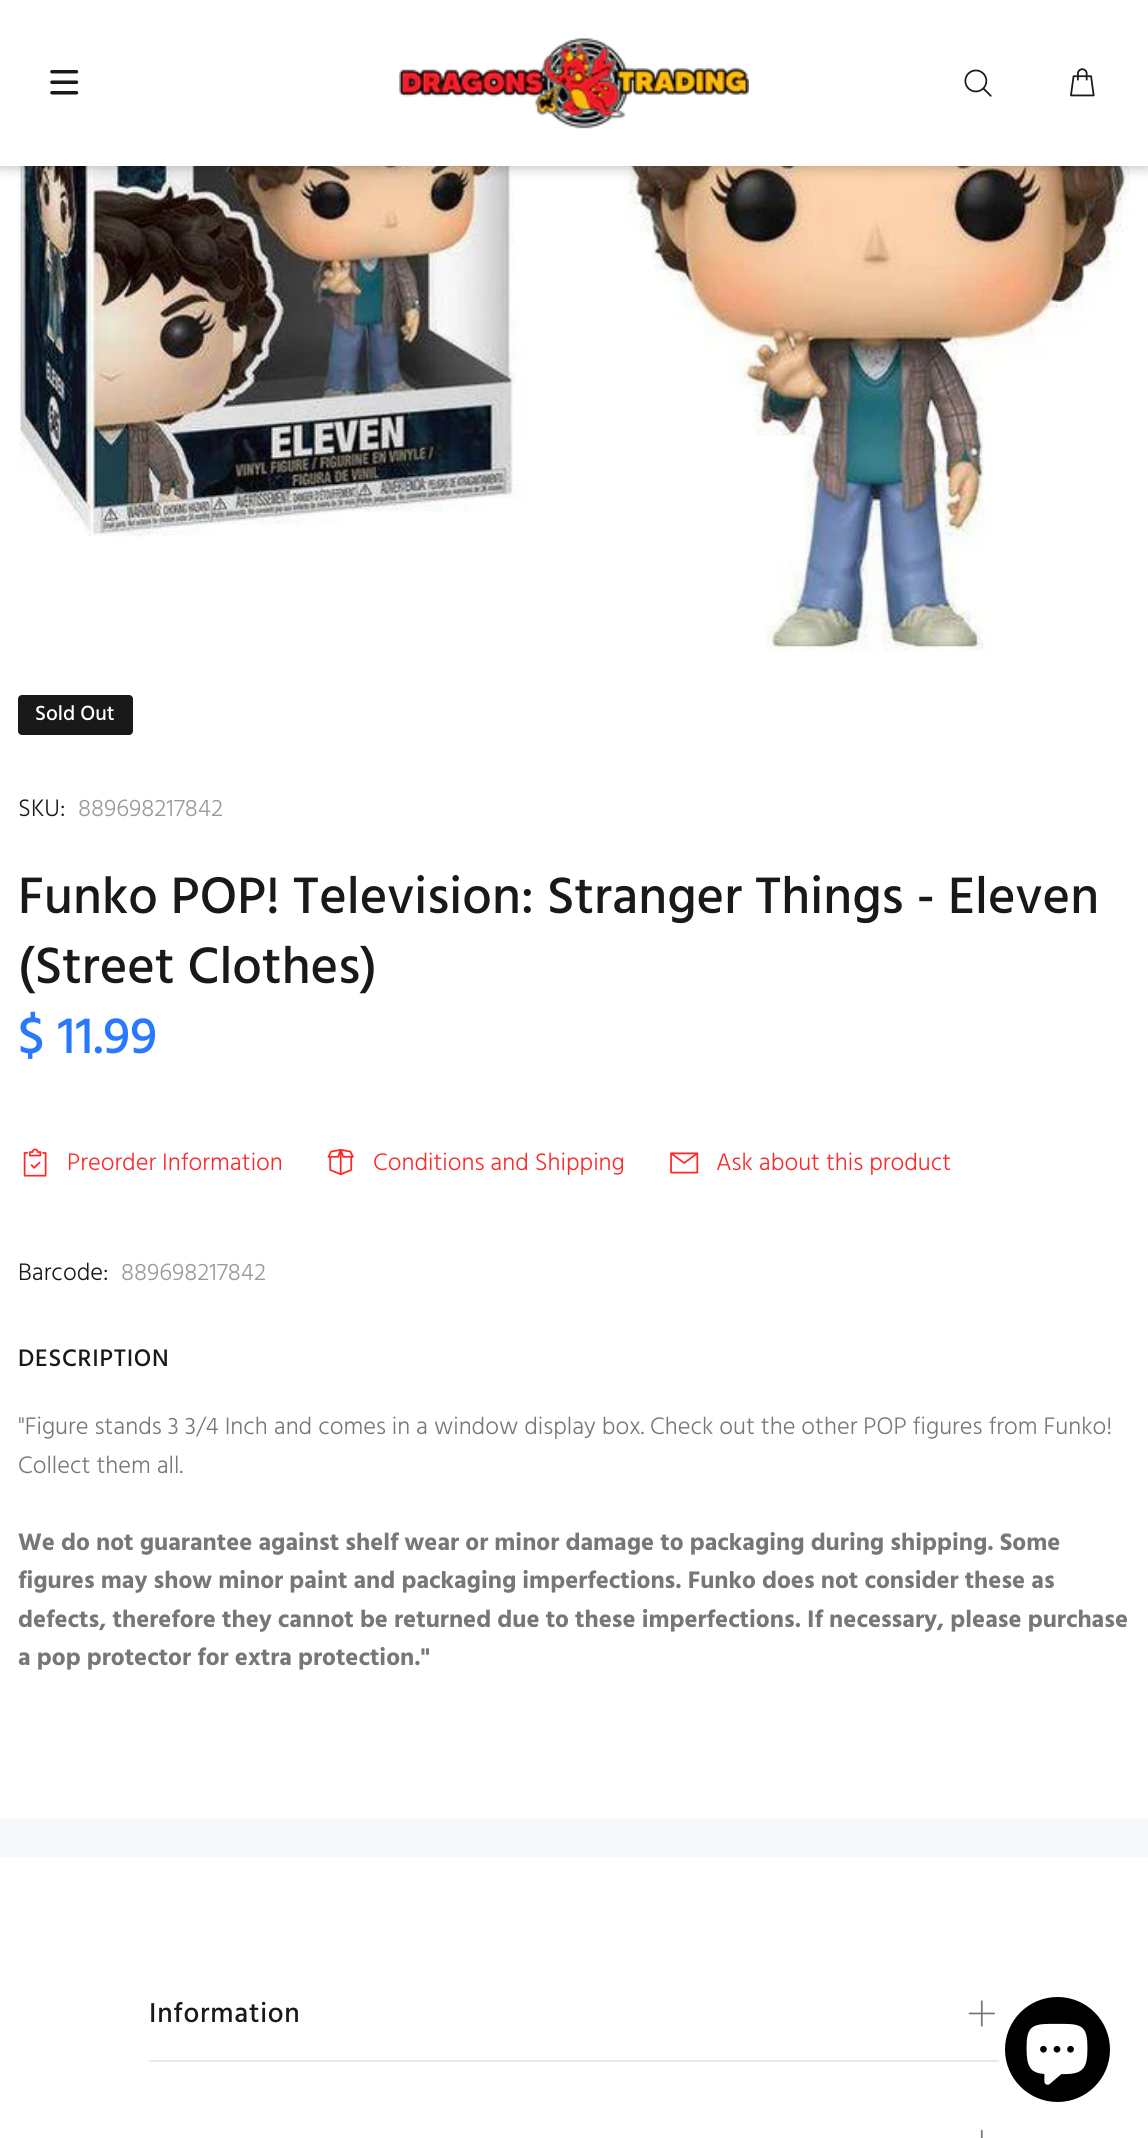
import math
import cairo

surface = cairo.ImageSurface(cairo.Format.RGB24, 1148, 2138)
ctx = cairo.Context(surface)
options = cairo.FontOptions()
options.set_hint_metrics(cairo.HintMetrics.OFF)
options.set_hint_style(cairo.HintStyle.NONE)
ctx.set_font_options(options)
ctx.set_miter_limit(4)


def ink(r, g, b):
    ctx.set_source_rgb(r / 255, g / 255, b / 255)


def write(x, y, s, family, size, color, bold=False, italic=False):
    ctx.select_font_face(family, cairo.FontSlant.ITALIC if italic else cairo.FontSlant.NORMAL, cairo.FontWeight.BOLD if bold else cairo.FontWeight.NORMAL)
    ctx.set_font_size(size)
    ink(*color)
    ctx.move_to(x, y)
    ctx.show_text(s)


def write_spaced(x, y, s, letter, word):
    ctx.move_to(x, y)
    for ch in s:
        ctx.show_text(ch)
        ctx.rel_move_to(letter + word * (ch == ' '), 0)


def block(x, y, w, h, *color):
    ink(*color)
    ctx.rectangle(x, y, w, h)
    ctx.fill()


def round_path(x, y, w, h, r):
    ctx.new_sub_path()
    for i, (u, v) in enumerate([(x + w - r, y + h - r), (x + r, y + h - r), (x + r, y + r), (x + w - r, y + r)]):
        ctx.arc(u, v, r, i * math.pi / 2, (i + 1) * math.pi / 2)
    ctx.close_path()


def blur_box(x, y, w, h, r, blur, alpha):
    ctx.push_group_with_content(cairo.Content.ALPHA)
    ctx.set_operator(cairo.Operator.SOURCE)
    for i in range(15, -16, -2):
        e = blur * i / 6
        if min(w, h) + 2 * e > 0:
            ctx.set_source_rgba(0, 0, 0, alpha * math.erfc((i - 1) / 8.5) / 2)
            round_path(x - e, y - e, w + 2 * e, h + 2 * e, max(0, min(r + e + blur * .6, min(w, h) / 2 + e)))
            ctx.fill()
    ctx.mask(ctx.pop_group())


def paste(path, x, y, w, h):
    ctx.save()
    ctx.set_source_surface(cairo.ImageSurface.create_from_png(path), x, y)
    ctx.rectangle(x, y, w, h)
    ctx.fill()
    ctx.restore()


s1 = dict(family="Hind Medium", size=21, color=(255, 255, 255))
s2 = dict(family="Hind Light", size=24.5, color=(25, 25, 25))
s3 = dict(family="Hind Light", size=24.5, color=(153, 153, 153))
s4 = dict(family="Hind Medium", size=52.5, color=(40, 121, 254))
s5 = dict(family="Hind Light", size=24.5, color=(254, 40, 40))
s6 = dict(family="Hind Light", size=24.5, color=(119, 119, 119))
s7 = dict(family="Hind", size=24.5, color=(119, 119, 119), bold=True)

ink(255, 255, 255)
ctx.paint()
paste("pic5.png", 17, 166, 1114, 486)
ink(0, 0, 0)
blur_box(0, 0, 1148, 166, 0, 7, 0.3)
block(0, 0, 1148, 166, 255, 255, 255)
paste("pic1.png", 50, 70, 29, 25)
paste("pic2.png", 399, 38, 350, 91)
paste("pic3.png", 964, 69, 28, 28)
paste("pic4.png", 1070, 68, 25, 29)
ink(25, 25, 25)
round_path(18, 695, 115, 40, 4)
ctx.fill()
write(35, 720, "Sold Out", **s1)
write(18, 816, "SKU:", **s2)
write(78, 816, "889698217842", **s3)
ctx.select_font_face("Hind Medium")
ctx.set_font_size(52.5)
ink(25, 25, 25)
write_spaced(18, 913, "Funko POP! Television: Stranger Things - Eleven", 0.05, 0)
write_spaced(18, 983, "(Street Clothes)", 0.05, 0)
write(18, 1053, "$ 11.99", **s4)
paste("pic6.png", 23, 1148, 24, 29)
write(67, 1170, "Preorder Information", **s5)
paste("pic7.png", 327, 1148, 27, 28)
write(373, 1170, "Conditions and Shipping", **s5)
paste("pic8.png", 670, 1152, 29, 22)
write(716, 1170, "Ask about this product", **s5)
write(18, 1280, "Barcode:", **s2)
write(121, 1280, "889698217842", **s3)
ctx.select_font_face("Hind Medium")
ink(25, 25, 25)
write_spaced(18, 1366, "DESCRIPTION", 0.75, 0)
write(18, 1434, "\"Figure stands 3 3/4 Inch and comes in a window display box. Check out the other POP figures from Funko!", **s6)
write(18, 1473, "Collect them all.", **s6)
write(18, 1550, "We do not guarantee against shelf wear or minor damage to packaging during shipping. Some", **s7)
write(18, 1588, "figures may show minor paint and packaging imperfections. Funko does not consider these as", **s7)
write(18, 1627, "defects, therefore they cannot be returned due to these imperfections. If necessary, please purchase", **s7)
write(18, 1665, "a pop protector for extra protection.\"", **s7)
block(0, 1818, 1148, 39, 247, 248, 250)
block(149, 2060, 850, 2, 233, 231, 231)
ctx.select_font_face("Hind Medium")
ctx.set_font_size(28)
ink(25, 25, 25)
write_spaced(149, 2022, "Information", 0.75, 0)
paste("pic9.png", 968, 2000, 27, 27)
paste("pic10.png", 980, 2129, 3, 9)
ink(0, 0, 0)
ctx.arc(1057.5, 2049.5, 52.5, 0, 2 * math.pi)
ctx.fill()
paste("pic11.png", 1026, 2023, 62, 62)
surface.write_to_png("screenshot.png")
